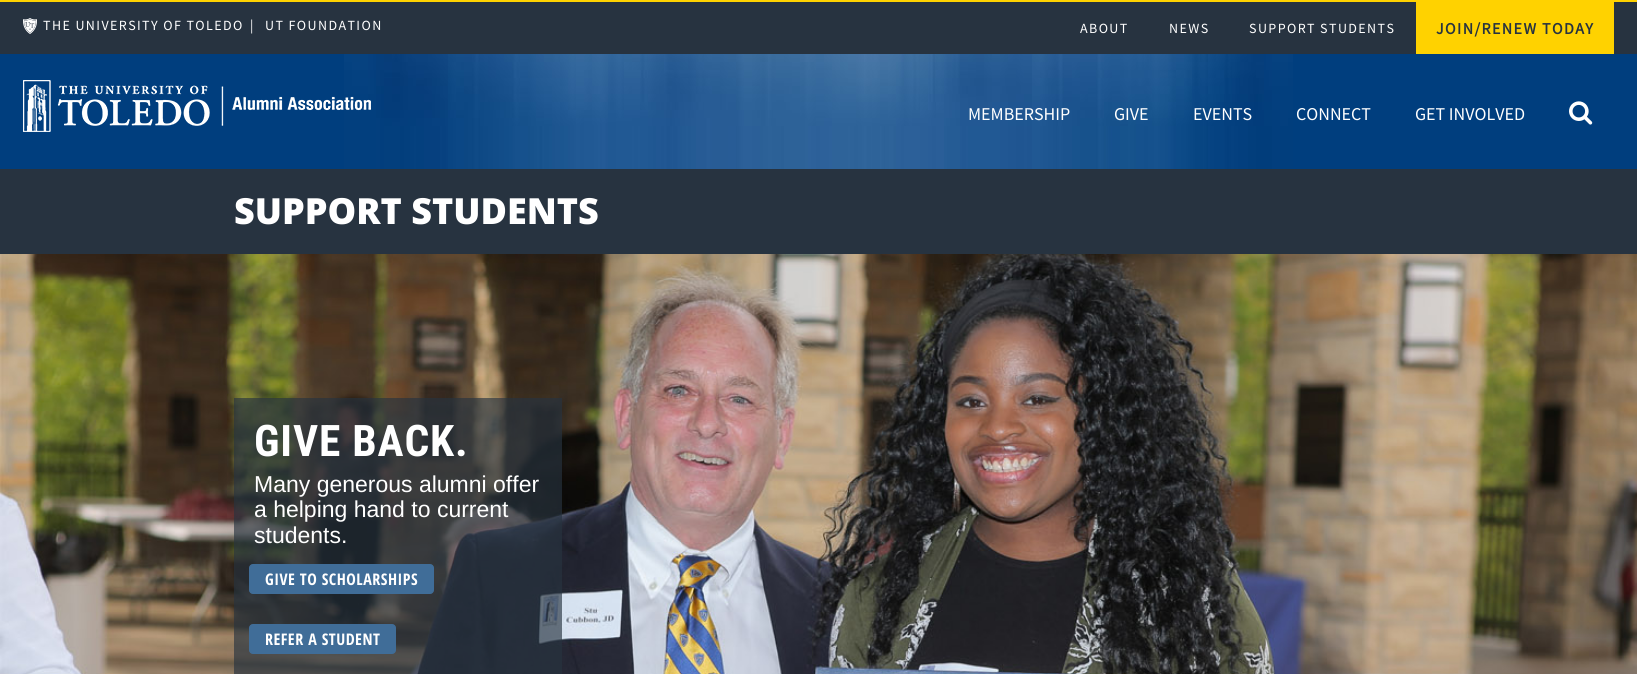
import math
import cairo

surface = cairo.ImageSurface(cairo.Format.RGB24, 1637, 674)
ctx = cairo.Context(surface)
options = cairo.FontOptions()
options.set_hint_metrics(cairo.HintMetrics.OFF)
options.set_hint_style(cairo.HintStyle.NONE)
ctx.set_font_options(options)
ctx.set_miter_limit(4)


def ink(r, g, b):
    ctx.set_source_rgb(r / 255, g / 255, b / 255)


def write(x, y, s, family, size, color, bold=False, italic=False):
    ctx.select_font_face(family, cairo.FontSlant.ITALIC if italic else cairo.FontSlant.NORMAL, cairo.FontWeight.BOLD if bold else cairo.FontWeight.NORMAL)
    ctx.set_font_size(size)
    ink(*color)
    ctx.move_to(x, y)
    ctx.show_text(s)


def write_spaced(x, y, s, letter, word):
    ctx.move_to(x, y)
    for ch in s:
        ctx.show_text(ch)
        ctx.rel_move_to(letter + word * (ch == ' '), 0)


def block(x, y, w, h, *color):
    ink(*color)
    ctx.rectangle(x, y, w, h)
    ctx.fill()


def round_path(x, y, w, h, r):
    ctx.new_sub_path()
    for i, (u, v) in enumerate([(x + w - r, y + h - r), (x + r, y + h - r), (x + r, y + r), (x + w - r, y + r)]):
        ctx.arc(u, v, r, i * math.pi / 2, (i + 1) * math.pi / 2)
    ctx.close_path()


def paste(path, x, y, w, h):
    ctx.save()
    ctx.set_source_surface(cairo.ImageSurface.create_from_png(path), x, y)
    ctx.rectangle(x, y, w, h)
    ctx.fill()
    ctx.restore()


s1 = dict(family="Source Sans Pro", size=18, color=(255, 255, 255))
s2 = dict(family="Open Sans ExtraBold", size=36, color=(255, 255, 255))
s3 = dict(family="Liberation Sans", size=23, color=(255, 255, 255))

ink(39, 51, 64)
ctx.paint()
block(0, 0, 1637, 2, 255, 210, 0)
paste("pic1.png", 23, 18, 14, 16)
ctx.select_font_face("Source Sans Pro")
ctx.set_font_size(14)
ink(255, 255, 255)
write_spaced(43, 30, "THE UNIVERSITY OF TOLEDO", 1.4, 0)
write_spaced(250, 30, "|", 1.4, 0)
write_spaced(265, 30, "UT FOUNDATION", 1.4, 0)
write_spaced(1080, 33, "ABOUT", 1.4, 0)
write_spaced(1169, 33, "NEWS", 1.4, 0)
write_spaced(1249, 33, "SUPPORT STUDENTS", 1.4, 0)
block(1416, 2, 198, 52, 255, 210, 0)
ctx.select_font_face("Source Sans Pro", cairo.FontSlant.NORMAL, cairo.FontWeight.BOLD)
ctx.set_font_size(16)
ink(39, 51, 64)
write_spaced(1436, 34, "JOIN/RENEW TODAY", 1.4, 0)
block(0, 54, 1637, 115, 0, 62, 126)
paste("pic2.png", 344, 54, 949, 115)
paste("pic3.png", 23, 80, 348, 52)
write(968, 120, "MEMBERSHIP", **s1)
write(1114, 120, "GIVE", **s1)
write(1193, 120, "EVENTS", **s1)
write(1296, 120, "CONNECT", **s1)
write(1415, 120, "GET INVOLVED", **s1)
paste("pic4.png", 1569, 101, 24, 24)
write(234, 224, "SUPPORT STUDENTS", **s2)
paste("pic5.png", 0, 254, 1637, 420)
ctx.set_source_rgba(0.153, 0.2, 0.251, 0.65)
ctx.rectangle(234, 398, 328, 276)
ctx.fill()
ctx.select_font_face("Roboto Condensed", cairo.FontSlant.NORMAL, cairo.FontWeight.BOLD)
ctx.set_font_size(43.5)
ink(255, 255, 255)
write_spaced(254, 456, "GIVE BACK.", 0.9, 0)
write(254, 492, "Many generous alumni offer", **s3)
write(254, 517, "a helping hand to current", **s3)
write(254, 543, "students.", **s3)
ink(64, 109, 152)
round_path(249.5, 564.5, 184, 29, 3.5)
ctx.fill_preserve()
ctx.set_line_width(1)
ctx.stroke()
ctx.select_font_face("Open Sans Condensed", cairo.FontSlant.NORMAL, cairo.FontWeight.BOLD)
ctx.set_font_size(16)
ink(255, 255, 255)
write_spaced(265, 585, "GIVE TO SCHOLARSHIPS", 0.5, 0)
ink(64, 109, 152)
round_path(249.5, 624.5, 146, 29, 3.5)
ctx.fill_preserve()
ctx.stroke()
ink(255, 255, 255)
write_spaced(265, 645, "REFER A STUDENT", 0.5, 0)
surface.write_to_png("screenshot.png")
